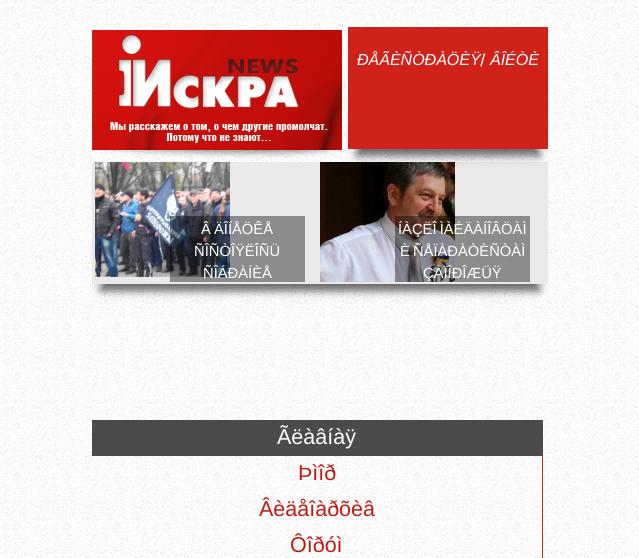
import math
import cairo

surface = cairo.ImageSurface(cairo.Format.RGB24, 639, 558)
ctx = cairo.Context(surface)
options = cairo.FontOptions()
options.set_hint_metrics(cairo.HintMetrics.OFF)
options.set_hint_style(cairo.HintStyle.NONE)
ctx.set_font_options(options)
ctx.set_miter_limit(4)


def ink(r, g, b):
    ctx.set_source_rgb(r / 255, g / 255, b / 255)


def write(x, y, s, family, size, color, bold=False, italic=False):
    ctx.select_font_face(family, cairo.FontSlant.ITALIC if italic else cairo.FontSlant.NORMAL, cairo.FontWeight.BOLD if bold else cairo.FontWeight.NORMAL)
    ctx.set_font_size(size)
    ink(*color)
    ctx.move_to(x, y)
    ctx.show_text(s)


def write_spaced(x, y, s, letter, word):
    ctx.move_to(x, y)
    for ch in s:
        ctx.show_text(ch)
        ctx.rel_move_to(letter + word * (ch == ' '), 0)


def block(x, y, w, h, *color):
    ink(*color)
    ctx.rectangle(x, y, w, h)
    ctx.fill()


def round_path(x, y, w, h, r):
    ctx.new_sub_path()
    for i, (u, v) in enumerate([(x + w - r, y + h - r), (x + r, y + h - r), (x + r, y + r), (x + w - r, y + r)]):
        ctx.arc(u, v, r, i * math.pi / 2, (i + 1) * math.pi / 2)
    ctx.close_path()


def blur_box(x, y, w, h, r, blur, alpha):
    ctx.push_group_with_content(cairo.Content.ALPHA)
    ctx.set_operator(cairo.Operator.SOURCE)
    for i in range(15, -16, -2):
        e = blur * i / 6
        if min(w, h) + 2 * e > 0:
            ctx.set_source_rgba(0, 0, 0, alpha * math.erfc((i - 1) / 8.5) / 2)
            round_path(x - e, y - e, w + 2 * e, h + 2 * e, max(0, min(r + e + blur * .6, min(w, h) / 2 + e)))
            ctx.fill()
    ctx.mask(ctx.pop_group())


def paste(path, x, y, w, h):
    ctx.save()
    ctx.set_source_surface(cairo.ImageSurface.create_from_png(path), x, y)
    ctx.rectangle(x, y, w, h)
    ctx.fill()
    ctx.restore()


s1 = dict(family="Liberation Sans", size=16, color=(255, 255, 255), italic=True)
s2 = dict(family="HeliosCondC", size=16, color=(255, 255, 255), bold=True)
s3 = dict(family="Liberation Sans", size=14.75, color=(255, 255, 255))
s4 = dict(family="Liberation Sans", size=21.5, color=(255, 255, 255))
s5 = dict(family="Liberation Sans", size=21.5, color=(193, 26, 20))

ink(255, 255, 255)
ctx.paint()
paste("pic1.png", 0, 0, 639, 558)
block(92, 319, 456, 1, 255, 255, 255)
paste("pic2.png", 92, 30, 250, 128)
ink(50, 50, 50)
blur_box(101, 187, 438, 104, 0, 4.5, 0.74)
block(92, 162, 456, 122, 233, 233, 233)
paste("pic4.png", 320, 162, 135, 120)
ink(50, 50, 50)
blur_box(357, 52, 182, 104, 0, 4.5, 0.74)
block(348, 27, 200, 122, 209, 34, 26)
write(357, 65, "ÐÅÃÈÑÒÐÀÖÈŸ", **s1)
write(480, 65, "/", **s2)
write(490, 65, "ÂÎÉÒÈ", **s1)
paste("pic3.png", 95, 162, 135, 115)
ctx.set_source_rgba(0, 0, 0, 0.4)
ctx.rectangle(170, 216, 135, 66)
ctx.fill()
ctx.select_font_face("Liberation Sans")
ctx.set_font_size(14.75)
ink(255, 255, 255)
write_spaced(201, 234, "Â ÄÎÍÅÖÊÅ", 0, -1)
write(194, 256, "ÑÎÑÒÎŸËÎÑÜ", **s3)
write(203, 278, "ÑÎÁÐÀÍÈÅ", **s3)
ctx.set_source_rgba(0, 0, 0, 0.4)
ctx.rectangle(395, 216, 135, 66)
ctx.fill()
ink(255, 255, 255)
write_spaced(398, 234, "ÍÀÇËÎ ÌÀÉÄÀÍÎÂÖÀÌ", 0, -1)
write_spaced(400, 256, "È ÑÅÏÀÐÀÒÈÑÒÀÌ", 0, -1)
write(423, 278, "ÇÀÏÎÐÎÆÜŸ", **s3)
block(92, 420, 451, 36, 75, 75, 75)
write(277, 444, "Ãëàâíàÿ", **s4)
block(542, 456, 1, 102, 217, 37, 29)
write(298, 480, "Þìîð", **s5)
write(259, 516, "Âèäåîàðõèâ", **s5)
write(290, 552, "Ôîðóì", **s5)
surface.write_to_png("screenshot.png")
